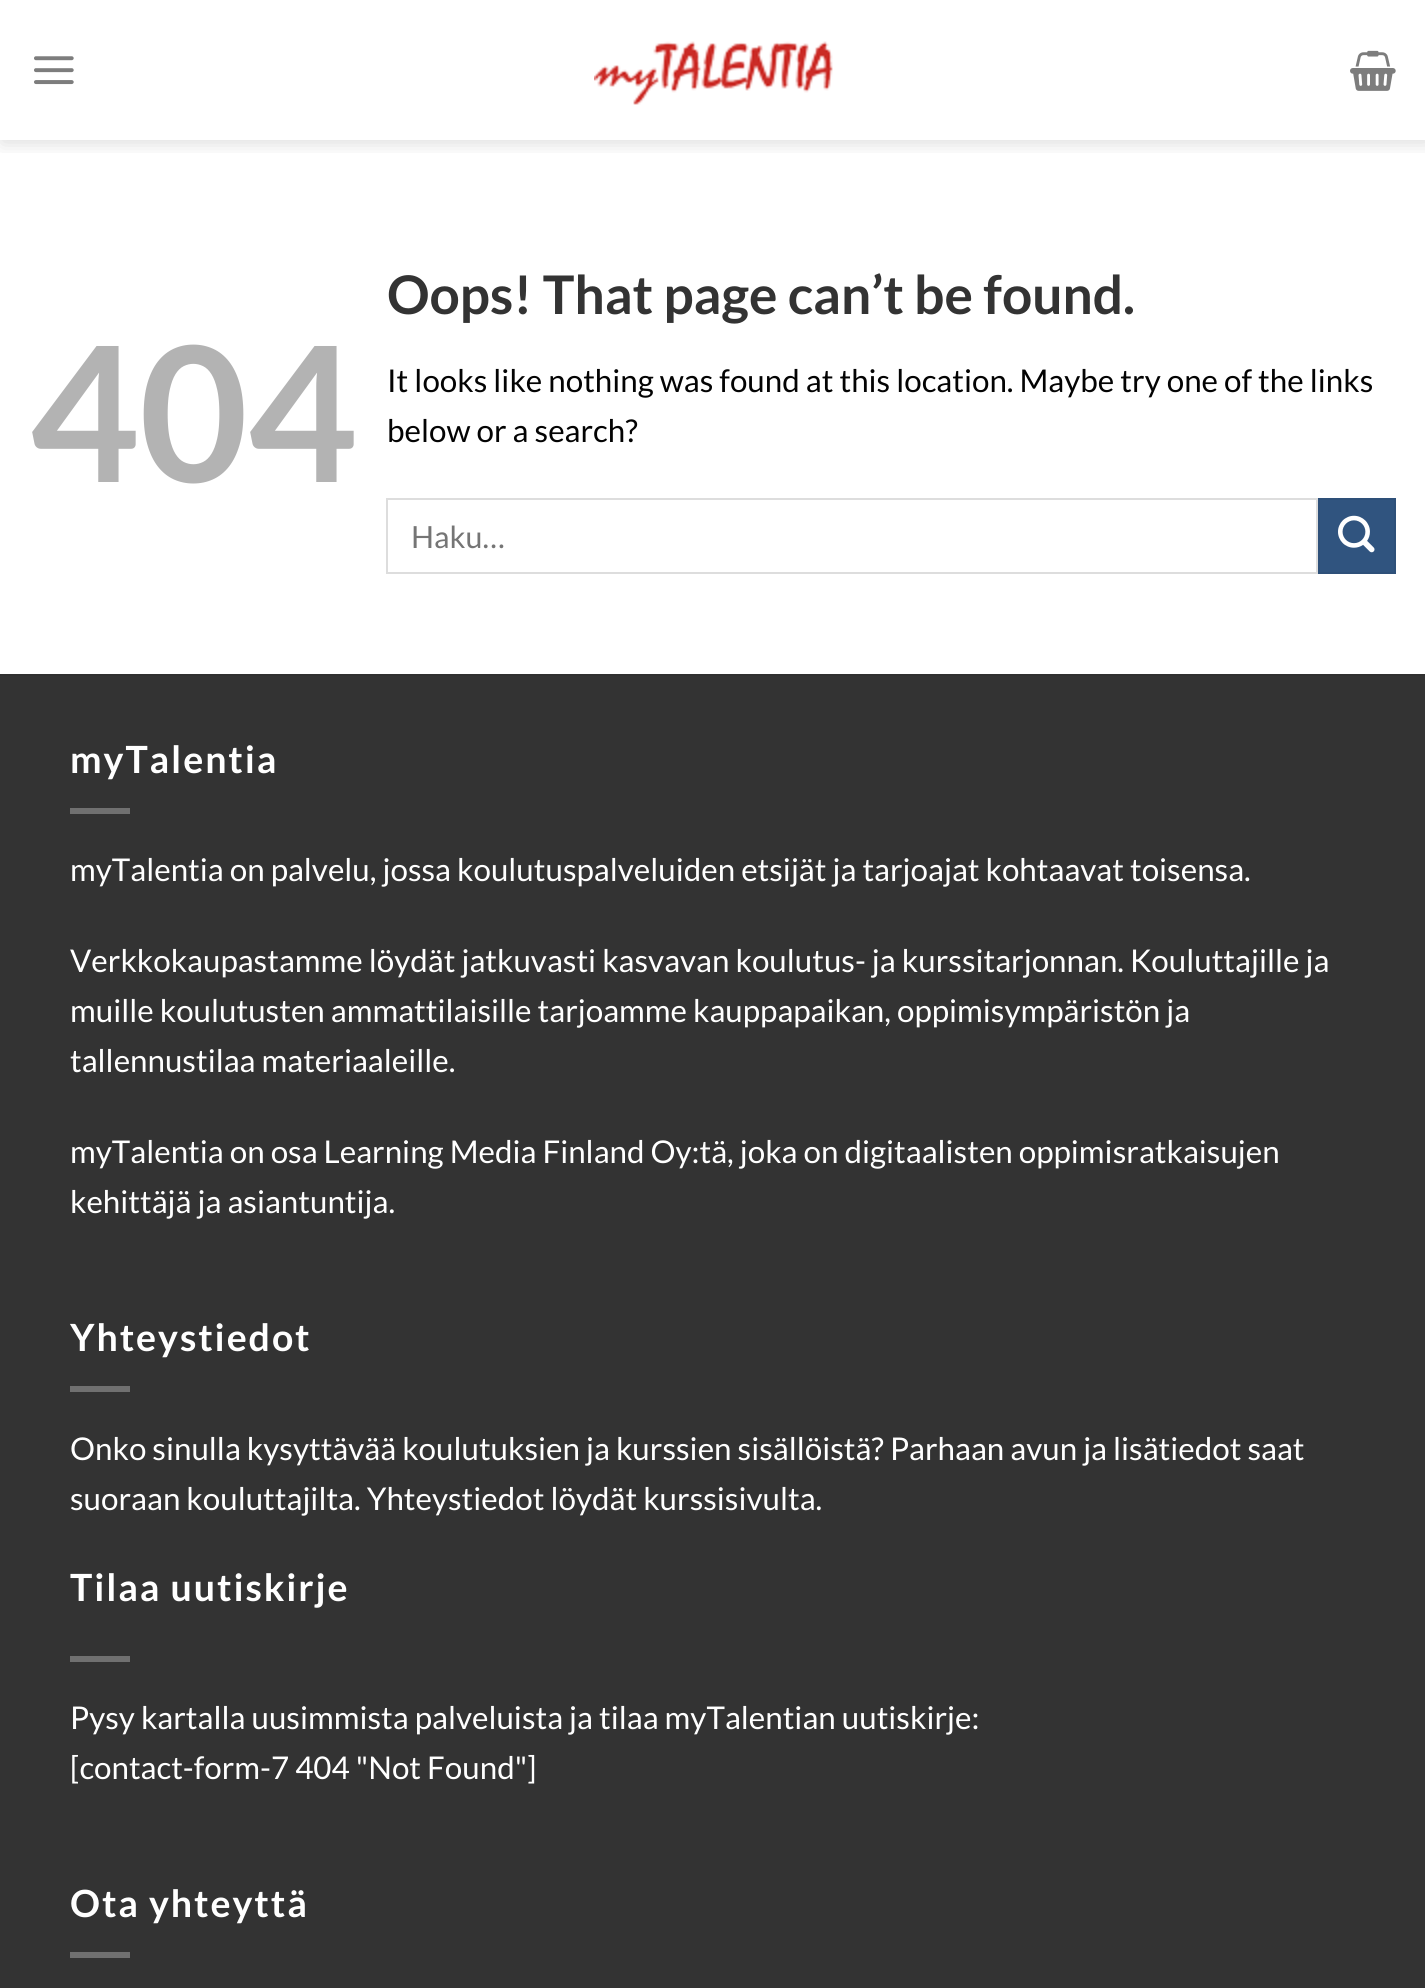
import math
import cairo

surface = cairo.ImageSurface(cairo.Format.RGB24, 1425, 1988)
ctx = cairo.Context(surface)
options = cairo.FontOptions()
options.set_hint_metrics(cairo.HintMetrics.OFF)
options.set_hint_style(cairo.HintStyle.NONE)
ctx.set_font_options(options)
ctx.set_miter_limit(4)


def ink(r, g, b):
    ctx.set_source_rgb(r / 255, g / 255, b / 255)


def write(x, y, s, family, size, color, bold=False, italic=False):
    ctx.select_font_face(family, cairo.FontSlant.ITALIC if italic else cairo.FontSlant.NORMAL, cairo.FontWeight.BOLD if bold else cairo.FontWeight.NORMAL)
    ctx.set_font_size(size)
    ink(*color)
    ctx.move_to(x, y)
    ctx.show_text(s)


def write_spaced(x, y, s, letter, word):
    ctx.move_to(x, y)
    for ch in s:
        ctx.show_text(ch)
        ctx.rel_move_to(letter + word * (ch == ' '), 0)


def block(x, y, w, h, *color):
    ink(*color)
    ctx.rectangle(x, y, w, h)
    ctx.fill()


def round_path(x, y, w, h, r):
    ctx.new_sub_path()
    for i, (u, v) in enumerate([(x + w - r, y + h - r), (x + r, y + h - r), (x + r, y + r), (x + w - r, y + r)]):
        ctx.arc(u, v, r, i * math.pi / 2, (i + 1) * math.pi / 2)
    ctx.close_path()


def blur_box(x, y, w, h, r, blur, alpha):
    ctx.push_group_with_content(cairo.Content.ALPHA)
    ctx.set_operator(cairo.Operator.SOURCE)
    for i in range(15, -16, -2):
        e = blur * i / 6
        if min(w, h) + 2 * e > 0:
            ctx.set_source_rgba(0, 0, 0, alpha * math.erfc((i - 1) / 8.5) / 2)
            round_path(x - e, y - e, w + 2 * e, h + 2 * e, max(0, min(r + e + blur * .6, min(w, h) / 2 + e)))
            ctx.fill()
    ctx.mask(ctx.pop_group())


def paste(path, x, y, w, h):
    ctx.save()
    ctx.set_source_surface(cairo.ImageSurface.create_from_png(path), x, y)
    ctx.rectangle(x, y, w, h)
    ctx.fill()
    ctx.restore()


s1 = dict(family="Lato", size=188, color=(179, 179, 179), bold=True)
s2 = dict(family="Lato", size=53.25, color=(51, 51, 51), bold=True)
s3 = dict(family="Lato", size=31.35, color=(3, 3, 3))
s4 = dict(family="Lato", size=30.5, color=(117, 117, 117))
s5 = dict(family="Lato", size=31.35, color=(255, 255, 255))

ink(255, 255, 255)
ctx.paint()
ctx.save()
ctx.rectangle(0, 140, 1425, 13)
ctx.clip()
ink(0, 0, 0)
blur_box(2, 2, 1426, 140, 0, 10, 0.15)
ctx.restore()
paste("pic1.png", 34, 56, 40, 29)
paste("pic2.png", 594, 41, 239, 64)
paste("pic3.png", 1350, 50, 46, 41)
write(30, 482, "404", **s1)
write(387, 314, "Oops! That page can’t be found.", **s2)
write(387, 392, "It looks like nothing was found at this location. Maybe try one of the links", **s3)
write(387, 442, "below or a search?", **s3)
ctx.rectangle(387, 499, 930, 74)
ink(221, 221, 221)
ctx.stroke()
write(411, 548, "Haku…", **s4)
ink(48, 84, 127)
ctx.rectangle(1319, 499, 76, 74)
ctx.fill_preserve()
ink(46, 80, 121)
ctx.stroke()
paste("pic4.png", 1338, 515, 37, 38)
block(0, 676, 1425, 1312, 51, 51, 51)
block(0, 674, 1425, 2, 48, 48, 48)
ctx.select_font_face("Lato", cairo.FontSlant.NORMAL, cairo.FontWeight.BOLD)
ctx.set_font_size(37.5)
ink(255, 255, 255)
write_spaced(70, 773, "myTalentia", 1.9, 0)
block(70, 808, 60, 6, 112, 112, 112)
write(70, 881, "myTalentia on palvelu, jossa koulutuspalveluiden etsijät ja tarjoajat kohtaavat toisensa.", **s5)
write(70, 972, "Verkkokaupastamme löydät jatkuvasti kasvavan koulutus- ja kurssitarjonnan. Kouluttajille ja", **s5)
write(70, 1022, "muille koulutusten ammattilaisille tarjoamme kauppapaikan, oppimisympäristön ja", **s5)
write(70, 1072, "tallennustilaa materiaaleille.", **s5)
write(70, 1163, "myTalentia on osa Learning Media Finland Oy:tä, joka on digitaalisten oppimisratkaisujen", **s5)
write(70, 1213, "kehittäjä ja asiantuntija.", **s5)
ctx.select_font_face("Lato", cairo.FontSlant.NORMAL, cairo.FontWeight.BOLD)
ctx.set_font_size(37.5)
write_spaced(70, 1351, "Yhteystiedot", 1.9, 0)
block(70, 1386, 60, 6, 112, 112, 112)
write(70, 1460, "Onko sinulla kysyttävää koulutuksien ja kurssien sisällöistä? Parhaan avun ja lisätiedot saat", **s5)
write(70, 1510, "suoraan kouluttajilta. Yhteystiedot löydät kurssisivulta.", **s5)
ctx.select_font_face("Lato", cairo.FontSlant.NORMAL, cairo.FontWeight.BOLD)
ctx.set_font_size(37.5)
write_spaced(70, 1601, "Tilaa uutiskirje", 1.9, 0)
block(70, 1656, 60, 6, 112, 112, 112)
write(70, 1729, "Pysy kartalla uusimmista palveluista ja tilaa myTalentian uutiskirje:", **s5)
write(70, 1779, "[contact-form-7 404 \"Not Found\"]", **s5)
ctx.select_font_face("Lato", cairo.FontSlant.NORMAL, cairo.FontWeight.BOLD)
ctx.set_font_size(37.5)
write_spaced(70, 1917, "Ota yhteyttä", 1.9, 0)
block(70, 1952, 60, 6, 112, 112, 112)
surface.write_to_png("screenshot.png")
